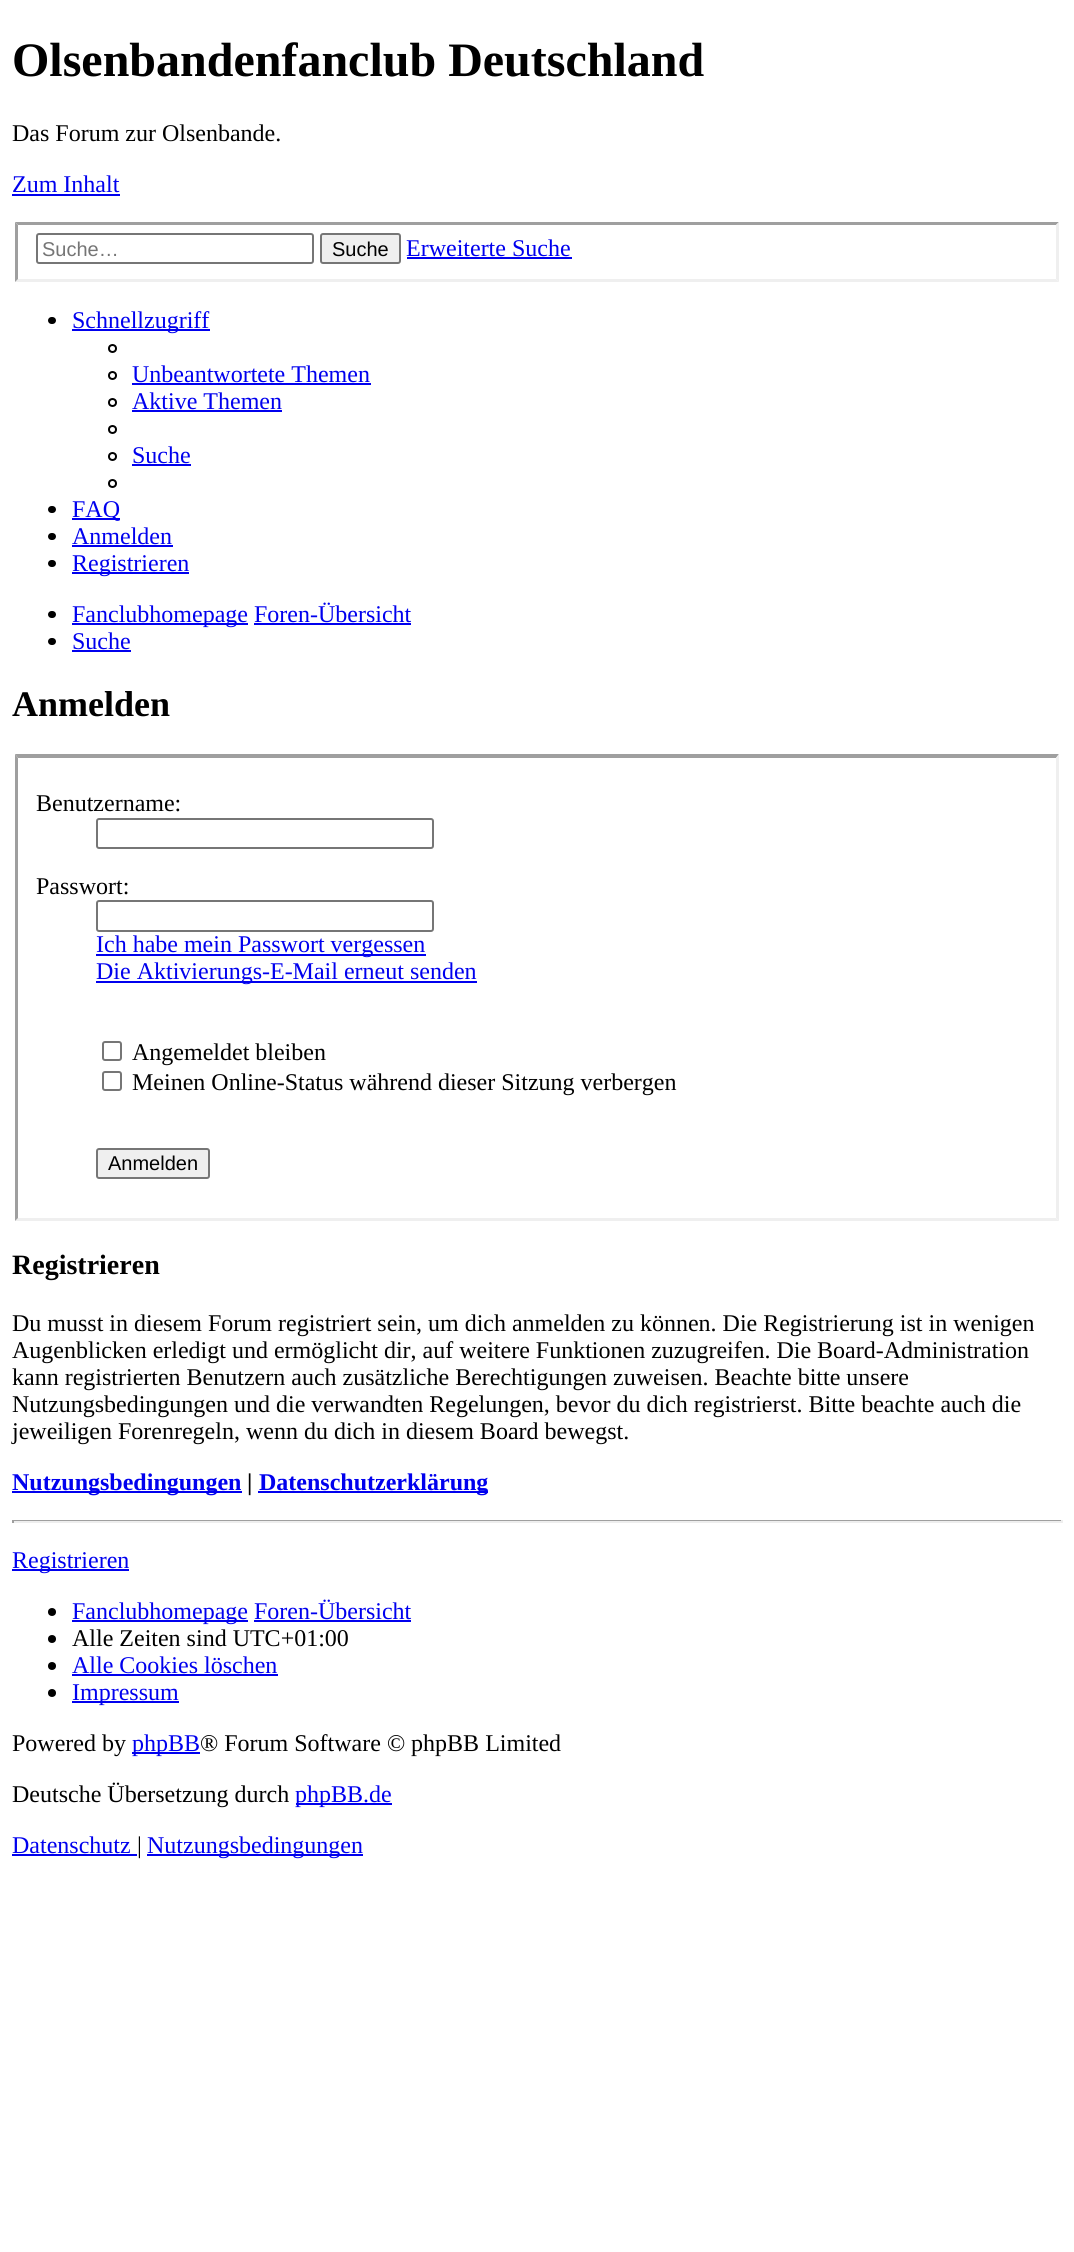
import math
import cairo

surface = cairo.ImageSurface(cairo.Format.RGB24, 1074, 2252)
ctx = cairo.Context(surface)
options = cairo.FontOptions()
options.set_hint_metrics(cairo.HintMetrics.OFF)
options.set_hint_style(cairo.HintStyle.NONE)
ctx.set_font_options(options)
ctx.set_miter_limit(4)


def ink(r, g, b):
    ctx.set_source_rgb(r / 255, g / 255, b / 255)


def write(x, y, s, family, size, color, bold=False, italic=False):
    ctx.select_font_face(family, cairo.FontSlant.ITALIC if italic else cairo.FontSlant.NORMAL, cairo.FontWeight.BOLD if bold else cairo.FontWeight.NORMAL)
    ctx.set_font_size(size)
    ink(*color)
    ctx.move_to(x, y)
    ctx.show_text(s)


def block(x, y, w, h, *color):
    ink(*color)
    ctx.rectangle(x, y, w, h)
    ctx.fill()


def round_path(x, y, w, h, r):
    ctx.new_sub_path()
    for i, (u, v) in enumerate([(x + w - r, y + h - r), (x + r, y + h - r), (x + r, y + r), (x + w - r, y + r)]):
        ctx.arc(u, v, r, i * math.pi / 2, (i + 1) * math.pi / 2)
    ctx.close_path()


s1 = dict(family="Liberation Serif", size=48, color=(0, 0, 0), bold=True)
s2 = dict(family="Liberation Serif", size=24, color=(0, 0, 0))
s3 = dict(family="Liberation Serif", size=24, color=(0, 0, 238))
s4 = dict(family="Liberation Sans", size=20, color=(117, 117, 117))
s5 = dict(family="Liberation Sans", size=20, color=(0, 0, 0))
s6 = dict(family="Liberation Serif", size=36, color=(0, 0, 0), bold=True)
s7 = dict(family="Liberation Serif", size=28, color=(0, 0, 0), bold=True)
s8 = dict(family="Liberation Serif", size=24, color=(0, 0, 238), bold=True)
s9 = dict(family="Liberation Serif", size=24, color=(0, 0, 0), bold=True)

ink(255, 255, 255)
ctx.paint()
write(12, 76, "Olsenbandenfanclub Deutschland", **s1)
write(12, 141, "Das Forum zur Olsenbande.", **s2)
write(12, 192, "Zum Inhalt", **s3)
block(12, 194, 108, 2, 0, 0, 238)
ink(159, 159, 159)
ctx.new_path()
ctx.move_to(15, 222)
ctx.line_to(1059, 222)
ctx.line_to(1056, 225)
ctx.line_to(18, 225)
ctx.close_path()
ctx.fill()
ink(239, 239, 239)
ctx.new_path()
ctx.move_to(1059, 222)
ctx.line_to(1059, 282)
ctx.line_to(1056, 279)
ctx.line_to(1056, 225)
ctx.close_path()
ctx.fill()
ctx.new_path()
ctx.move_to(1059, 282)
ctx.line_to(15, 282)
ctx.line_to(18, 279)
ctx.line_to(1056, 279)
ctx.close_path()
ctx.fill()
ink(159, 159, 159)
ctx.new_path()
ctx.move_to(15, 282)
ctx.line_to(15, 222)
ctx.line_to(18, 225)
ctx.line_to(18, 279)
ctx.close_path()
ctx.fill()
round_path(37, 234, 276, 29, 2)
ink(118, 118, 118)
ctx.stroke()
write(42, 256, "Suche…", **s4)
ink(239, 239, 239)
round_path(321, 234, 79, 29, 2)
ctx.fill_preserve()
ink(118, 118, 118)
ctx.stroke()
write(332, 256, "Suche", **s5)
write(406, 256, "Erweiterte Suche", **s3)
block(407, 257, 165, 2, 0, 0, 238)
ink(0, 0, 0)
round_path(48, 317, 8, 7, 3.5)
ctx.fill()
block(72, 329, 138, 2, 0, 0, 238)
write(72, 328, "Schnellzugriff", **s3)
ctx.new_path()
ctx.arc(112.5, 348.5, 3.5, 0, 2 * math.pi)
ink(0, 0, 0)
ctx.stroke()
ctx.arc(112.5, 375.5, 3.5, 0, 2 * math.pi)
ctx.stroke()
write(132, 382, "Unbeantwortete Themen", **s3)
block(132, 383, 239, 2, 0, 0, 238)
ctx.new_path()
ctx.arc(112.5, 402.5, 3.5, 0, 2 * math.pi)
ink(0, 0, 0)
ctx.stroke()
write(132, 409, "Aktive Themen", **s3)
block(132, 410, 150, 2, 0, 0, 238)
ctx.new_path()
ctx.arc(112.5, 429.5, 3.5, 0, 2 * math.pi)
ink(0, 0, 0)
ctx.stroke()
ctx.arc(112.5, 456.5, 3.5, 0, 2 * math.pi)
ctx.stroke()
write(132, 463, "Suche", **s3)
block(132, 464, 59, 2, 0, 0, 238)
ctx.new_path()
ctx.arc(112.5, 483.5, 3.5, 0, 2 * math.pi)
ink(0, 0, 0)
ctx.stroke()
round_path(48, 506, 8, 7, 3.5)
ctx.fill()
block(72, 518, 48, 2, 0, 0, 238)
write(72, 517, "FAQ", **s3)
ink(0, 0, 0)
round_path(48, 533, 8, 7, 3.5)
ctx.fill()
write(72, 544, "Anmelden", **s3)
block(72, 545, 101, 2, 0, 0, 238)
ink(0, 0, 0)
round_path(48, 560, 8, 7, 3.5)
ctx.fill()
block(72, 572, 117, 2, 0, 0, 238)
write(72, 571, "Registrieren", **s3)
ink(0, 0, 0)
round_path(48, 611, 8, 7, 3.5)
ctx.fill()
block(72, 623, 176, 2, 0, 0, 238)
write(72, 622, "Fanclubhomepage Foren-Übersicht", **s3)
block(254, 623, 157, 2, 0, 0, 238)
ink(0, 0, 0)
round_path(48, 638, 8, 7, 3.5)
ctx.fill()
write(72, 649, "Suche", **s3)
block(72, 650, 59, 2, 0, 0, 238)
write(12, 716, "Anmelden", **s6)
ink(159, 159, 159)
ctx.new_path()
ctx.move_to(15, 754)
ctx.line_to(1059, 754)
ctx.line_to(1056, 758)
ctx.line_to(18, 758)
ctx.close_path()
ctx.fill()
ink(239, 239, 239)
ctx.new_path()
ctx.move_to(1059, 754)
ctx.line_to(1059, 1221)
ctx.line_to(1056, 1218)
ctx.line_to(1056, 758)
ctx.close_path()
ctx.fill()
ctx.new_path()
ctx.move_to(1059, 1221)
ctx.line_to(15, 1221)
ctx.line_to(18, 1218)
ctx.line_to(1056, 1218)
ctx.close_path()
ctx.fill()
ink(159, 159, 159)
ctx.new_path()
ctx.move_to(15, 1221)
ctx.line_to(15, 754)
ctx.line_to(18, 758)
ctx.line_to(18, 1218)
ctx.close_path()
ctx.fill()
write(36, 811, "Benutzername:", **s2)
round_path(97, 819, 336, 29, 2)
ink(118, 118, 118)
ctx.stroke()
write(36, 894, "Passwort:", **s2)
round_path(97, 901, 336, 30, 2)
ink(118, 118, 118)
ctx.stroke()
block(96, 954, 330, 2, 0, 0, 238)
write(96, 952, "Ich habe mein Passwort vergessen", **s3)
block(96, 981, 381, 2, 0, 0, 238)
write(96, 979, "Die Aktivierungs-E-Mail erneut senden", **s3)
round_path(103, 1042, 18, 18, 2)
ink(118, 118, 118)
ctx.stroke()
write(132, 1060, "Angemeldet bleiben", **s2)
round_path(103, 1072, 18, 18, 2)
ink(118, 118, 118)
ctx.stroke()
write(132, 1090, "Meinen Online-Status während dieser Sitzung verbergen", **s2)
ink(239, 239, 239)
round_path(97, 1149, 112, 29, 2)
ctx.fill_preserve()
ink(118, 118, 118)
ctx.stroke()
write(108, 1170, "Anmelden", **s5)
write(12, 1274, "Registrieren", **s7)
write(12, 1331, "Du musst in diesem Forum registriert sein, um dich anmelden zu können. Die Registrierung ist in wenigen", **s2)
write(12, 1358, "Augenblicken erledigt und ermöglicht dir, auf weitere Funktionen zuzugreifen. Die Board-Administration", **s2)
write(12, 1385, "kann registrierten Benutzern auch zusätzliche Berechtigungen zuweisen. Beachte bitte unsere", **s2)
write(12, 1412, "Nutzungsbedingungen und die verwandten Regelungen, bevor du dich registrierst. Bitte beachte auch die", **s2)
write(12, 1439, "jeweiligen Forenregeln, wenn du dich in diesem Board bewegst.", **s2)
block(12, 1491, 230, 2, 0, 0, 238)
write(12, 1490, "Nutzungsbedingungen", **s8)
write(247, 1490, "|", **s9)
block(258, 1491, 230, 2, 0, 0, 238)
write(259, 1490, "Datenschutzerklärung", **s8)
block(12, 1520, 1050, 1, 159, 159, 159)
block(1061, 1520, 2, 3, 238, 238, 238)
block(12, 1521, 1050, 2, 238, 238, 238)
block(12, 1520, 2, 3, 159, 159, 159)
block(12, 1569, 117, 2, 0, 0, 238)
write(12, 1568, "Registrieren", **s3)
ink(0, 0, 0)
ctx.new_path()
ctx.arc(52, 1612, 4, 0, 2 * math.pi)
ctx.fill()
block(72, 1620, 176, 2, 0, 0, 238)
write(72, 1619, "Fanclubhomepage Foren-Übersicht", **s3)
block(254, 1620, 157, 2, 0, 0, 238)
ink(0, 0, 0)
ctx.new_path()
ctx.arc(52, 1639, 4, 0, 2 * math.pi)
ctx.fill()
write(72, 1646, "Alle Zeiten sind UTC+01:00", **s2)
ctx.new_path()
ctx.arc(52, 1666, 4, 0, 2 * math.pi)
ctx.fill()
write(72, 1673, "Alle Cookies löschen", **s3)
block(72, 1674, 206, 2, 0, 0, 238)
ink(0, 0, 0)
ctx.new_path()
ctx.arc(52, 1693, 4, 0, 2 * math.pi)
ctx.fill()
block(72, 1701, 107, 2, 0, 0, 238)
write(72, 1700, "Impressum", **s3)
write(12, 1751, "Powered by", **s2)
block(132, 1752, 68, 2, 0, 0, 238)
write(132, 1751, "phpBB", **s3)
write(200, 1751, "® Forum Software © phpBB Limited", **s2)
write(12, 1802, "Deutsche Übersetzung durch", **s2)
block(296, 1803, 96, 2, 0, 0, 238)
write(295, 1802, "phpBB.de", **s3)
write(12, 1853, "Datenschutz", **s3)
block(12, 1854, 125, 2, 0, 0, 238)
write(137, 1853, "|", **s2)
block(147, 1854, 216, 2, 0, 0, 238)
write(147, 1853, "Nutzungsbedingungen", **s3)
surface.write_to_png("screenshot.png")
